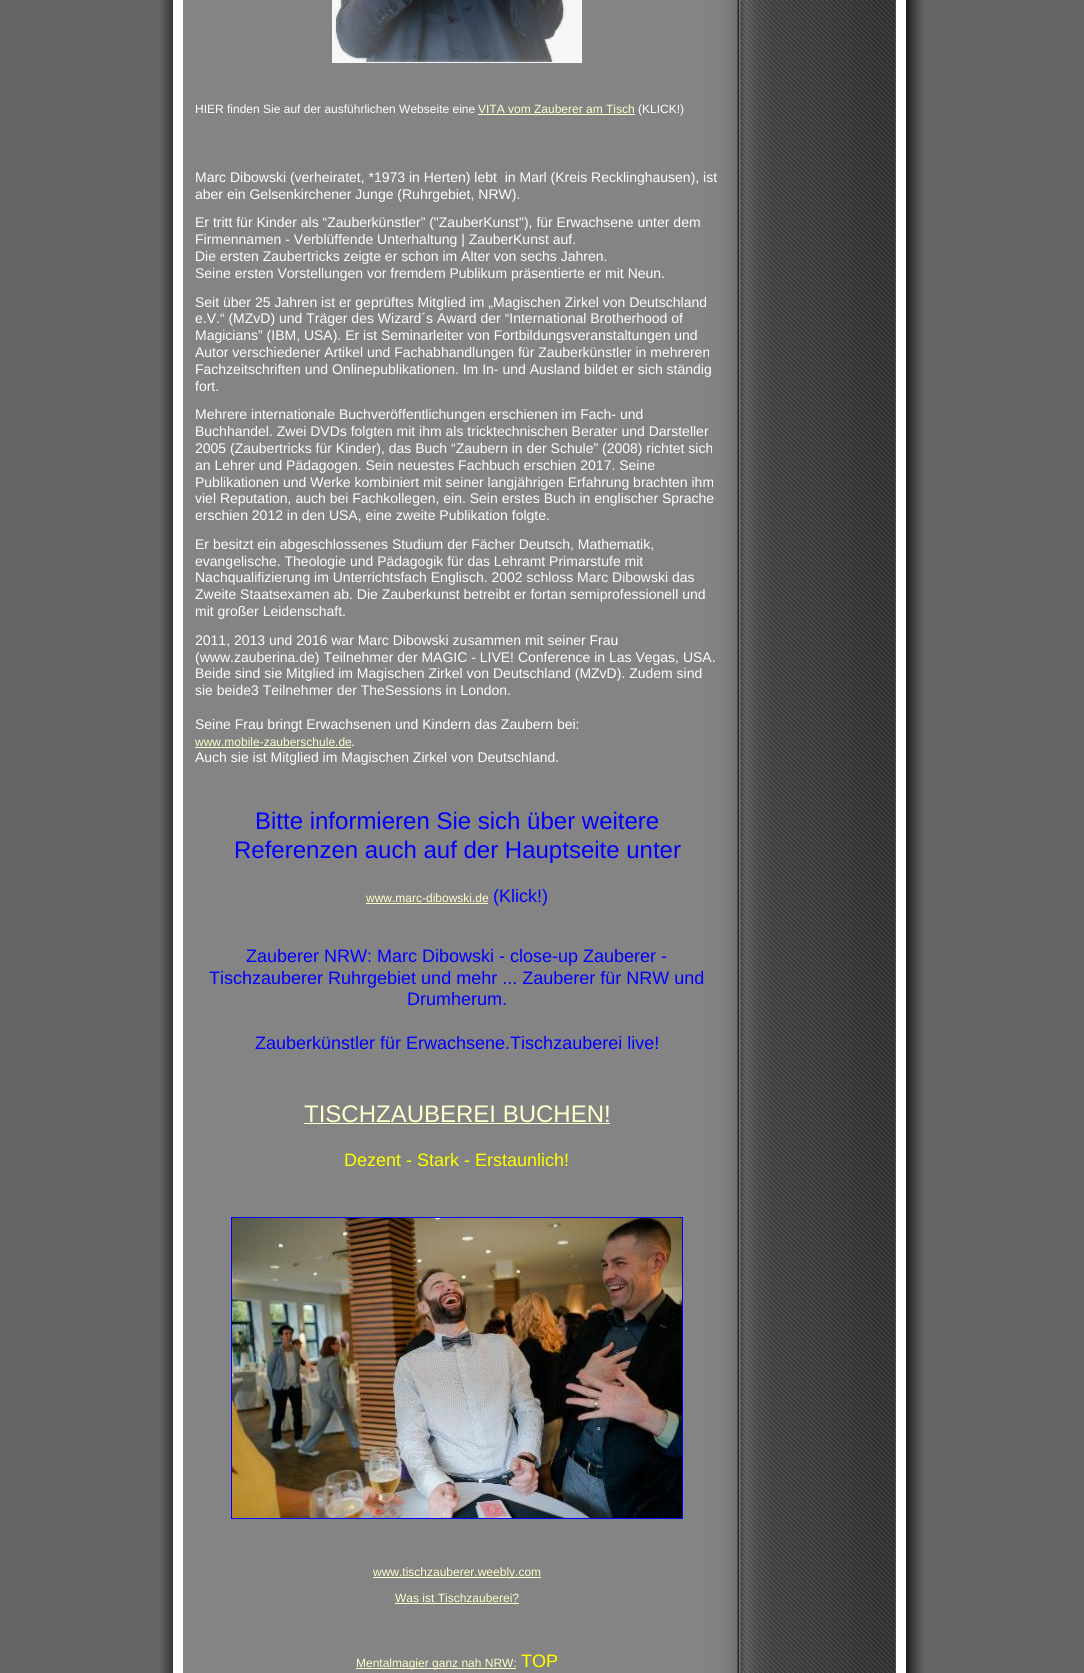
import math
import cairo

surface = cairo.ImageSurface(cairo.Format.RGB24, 1084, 1673)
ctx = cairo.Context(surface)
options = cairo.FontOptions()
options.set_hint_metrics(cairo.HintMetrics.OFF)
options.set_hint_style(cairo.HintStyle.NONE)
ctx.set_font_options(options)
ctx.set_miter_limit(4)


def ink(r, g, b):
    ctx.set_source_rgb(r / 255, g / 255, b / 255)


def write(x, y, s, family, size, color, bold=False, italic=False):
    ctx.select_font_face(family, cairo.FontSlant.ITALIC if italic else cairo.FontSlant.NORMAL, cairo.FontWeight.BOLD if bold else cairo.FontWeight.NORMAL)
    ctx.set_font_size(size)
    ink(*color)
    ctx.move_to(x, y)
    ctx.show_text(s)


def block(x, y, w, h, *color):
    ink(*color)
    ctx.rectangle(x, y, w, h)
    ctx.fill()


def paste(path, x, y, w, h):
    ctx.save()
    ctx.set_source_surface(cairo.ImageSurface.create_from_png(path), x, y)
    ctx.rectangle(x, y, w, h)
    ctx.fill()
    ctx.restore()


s1 = dict(family="Liberation Sans", size=12, color=(255, 255, 255))
s2 = dict(family="Liberation Sans", size=12, color=(255, 255, 204))
s3 = dict(family="Liberation Sans", size=14, color=(255, 255, 255))
s4 = dict(family="Liberation Sans", size=24, color=(0, 0, 255))
s5 = dict(family="Liberation Sans", size=18, color=(0, 0, 255))
s6 = dict(family="Liberation Sans", size=24, color=(255, 255, 204))
s7 = dict(family="Liberation Sans", size=18, color=(255, 255, 0))

ink(102, 102, 102)
ctx.paint()
paste("pic1.png", 160, 0, 764, 1673)
paste("pic2.png", 332, 0, 250, 63)
write(195, 113, "HIER finden Sie auf der ausführlichen Webseite eine", **s1)
write(478, 113, "VITA vom Zauberer am Tisch", **s2)
block(478, 114, 157, 1, 255, 255, 204)
write(638, 113, "(KLICK!)", **s1)
write(195, 182, "Marc Dibowski (verheiratet, *1973 in Herten) lebt  in Marl (Kreis Recklinghausen), ist", **s3)
write(195, 199, "aber ein Gelsenkirchener Junge (Ruhrgebiet, NRW).", **s3)
write(195, 227, "Er tritt für Kinder als “Zauberkünstler” (\"ZauberKunst\"), für Erwachsene unter dem", **s3)
write(195, 244, "Firmennamen - Verblüffende Unterhaltung | ZauberKunst auf.", **s3)
write(195, 261, "Die ersten Zaubertricks zeigte er schon im Alter von sechs Jahren.", **s3)
write(195, 278, "Seine ersten Vorstellungen vor fremdem Publikum präsentierte er mit Neun.", **s3)
write(195, 307, "Seit über 25 Jahren ist er geprüftes Mitglied im „Magischen Zirkel von Deutschland", **s3)
write(195, 323, "e.V.“ (MZvD) und Träger des Wizard´s Award der “International Brotherhood of", **s3)
write(195, 340, "Magicians” (IBM, USA). Er ist Seminarleiter von Fortbildungsveranstaltungen und", **s3)
write(195, 357, "Autor verschiedener Artikel und Fachabhandlungen für Zauberkünstler in mehreren", **s3)
write(195, 374, "Fachzeitschriften und Onlinepublikationen. Im In- und Ausland bildet er sich ständig", **s3)
write(195, 391, "fort.", **s3)
write(195, 419, "Mehrere internationale Buchveröffentlichungen erschienen im Fach- und", **s3)
write(195, 436, "Buchhandel. Zwei DVDs folgten mit ihm als tricktechnischen Berater und Darsteller", **s3)
write(195, 453, "2005 (Zaubertricks für Kinder), das Buch “Zaubern in der Schule” (2008) richtet sich", **s3)
write(195, 470, "an Lehrer und Pädagogen. Sein neuestes Fachbuch erschien 2017. Seine", **s3)
write(195, 487, "Publikationen und Werke kombiniert mit seiner langjährigen Erfahrung brachten ihm", **s3)
write(195, 503, "viel Reputation, auch bei Fachkollegen, ein. Sein erstes Buch in englischer Sprache", **s3)
write(195, 520, "erschien 2012 in den USA, eine zweite Publikation folgte.", **s3)
write(195, 549, "Er besitzt ein abgeschlossenes Studium der Fächer Deutsch, Mathematik,", **s3)
write(195, 566, "evangelische. Theologie und Pädagogik für das Lehramt Primarstufe mit", **s3)
write(195, 582, "Nachqualifizierung im Unterrichtsfach Englisch. 2002 schloss Marc Dibowski das", **s3)
write(195, 599, "Zweite Staatsexamen ab. Die Zauberkunst betreibt er fortan semiprofessionell und", **s3)
write(195, 616, "mit großer Leidenschaft.", **s3)
write(195, 645, "2011, 2013 und 2016 war Marc Dibowski zusammen mit seiner Frau", **s3)
write(195, 662, "(www.zauberina.de) Teilnehmer der MAGIC - LIVE! Conference in Las Vegas, USA.", **s3)
write(195, 678, "Beide sind sie Mitglied im Magischen Zirkel von Deutschland (MZvD). Zudem sind", **s3)
write(195, 695, "sie beide3 Teilnehmer der TheSessions in London.", **s3)
write(195, 729, "Seine Frau bringt Erwachsenen und Kindern das Zaubern bei:", **s3)
write(195, 746, "www.mobile-zauberschule.de", **s2)
write(351, 746, ".", **s3)
block(195, 747, 156, 1, 255, 255, 204)
write(195, 762, "Auch sie ist Mitglied im Magischen Zirkel von Deutschland.", **s3)
write(255, 829, "Bitte informieren Sie sich über weitere", **s4)
write(234, 858, "Referenzen auch auf der Hauptseite unter", **s4)
write(366, 902, "www.marc-dibowski.de", **s2)
block(366, 903, 122, 1, 255, 255, 204)
write(493, 902, "(Klick!)", **s5)
write(246, 962, "Zauberer NRW: Marc Dibowski - close-up Zauberer -", **s5)
write(209, 984, "Tischzauberer Ruhrgebiet und mehr ... Zauberer für NRW und", **s5)
write(407, 1005, "Drumherum.", **s5)
write(255, 1049, "Zauberkünstler für Erwachsene.Tischzauberei live!", **s5)
write(304, 1122, "TISCHZAUBEREI BUCHEN!", **s6)
block(304, 1123, 306, 1, 255, 255, 204)
write(344, 1166, "Dezent - Stark - Erstaunlich!", **s7)
ctx.rectangle(231.5, 1217.5, 451, 301)
ink(0, 0, 255)
ctx.set_line_width(1)
ctx.stroke()
paste("pic3.png", 232, 1218, 450, 300)
block(373, 1577, 168, 1, 255, 255, 204)
write(373, 1576, "www.tischzauberer.weebly.com", **s2)
write(395, 1602, "Was ist Tischzauberei?", **s2)
block(395, 1603, 124, 1, 255, 255, 204)
block(356, 1668, 160, 1, 255, 255, 204)
write(356, 1667, "Mentalmagier ganz nah NRW:", **s2)
write(521, 1667, "TOP", **s7)
surface.write_to_png("screenshot.png")
